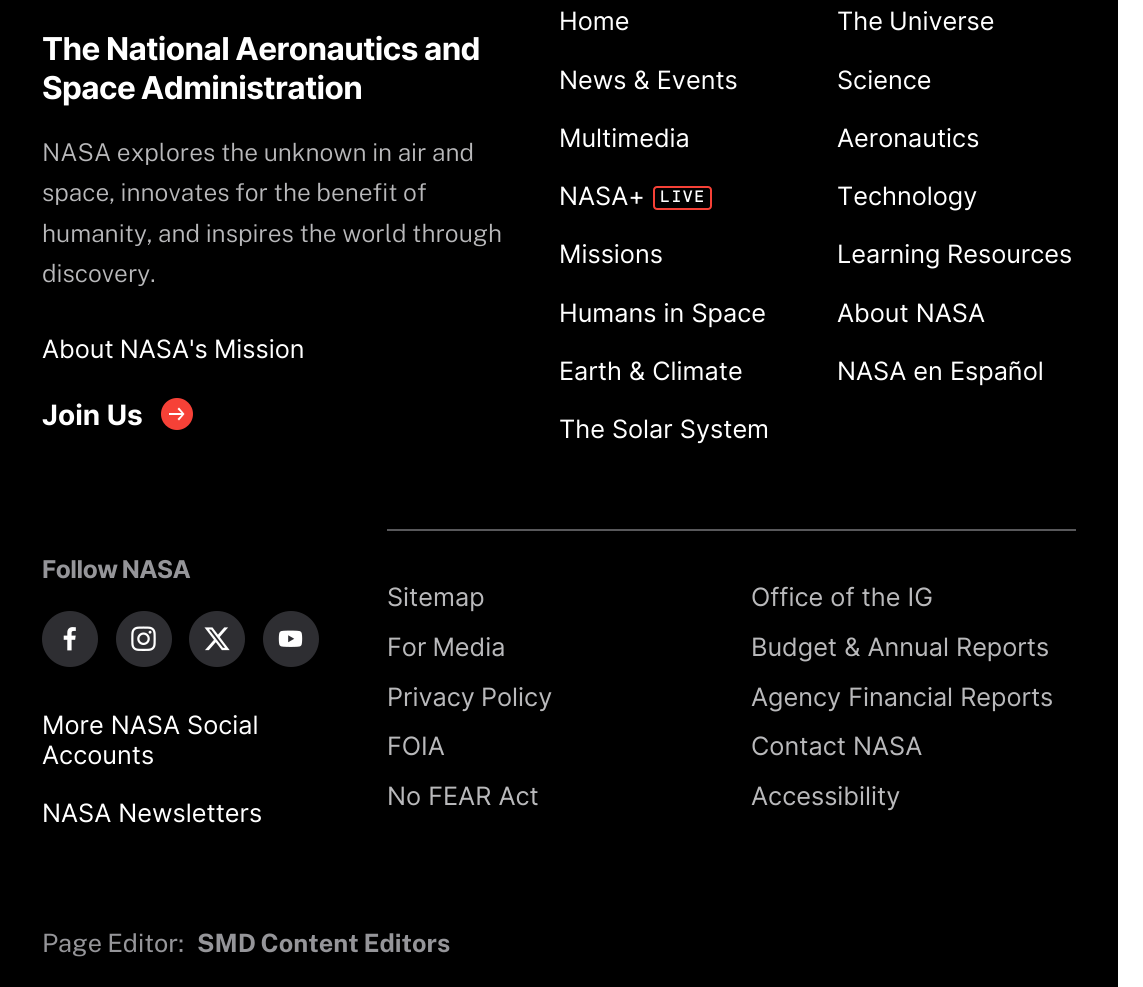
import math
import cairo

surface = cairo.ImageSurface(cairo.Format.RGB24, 1143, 987)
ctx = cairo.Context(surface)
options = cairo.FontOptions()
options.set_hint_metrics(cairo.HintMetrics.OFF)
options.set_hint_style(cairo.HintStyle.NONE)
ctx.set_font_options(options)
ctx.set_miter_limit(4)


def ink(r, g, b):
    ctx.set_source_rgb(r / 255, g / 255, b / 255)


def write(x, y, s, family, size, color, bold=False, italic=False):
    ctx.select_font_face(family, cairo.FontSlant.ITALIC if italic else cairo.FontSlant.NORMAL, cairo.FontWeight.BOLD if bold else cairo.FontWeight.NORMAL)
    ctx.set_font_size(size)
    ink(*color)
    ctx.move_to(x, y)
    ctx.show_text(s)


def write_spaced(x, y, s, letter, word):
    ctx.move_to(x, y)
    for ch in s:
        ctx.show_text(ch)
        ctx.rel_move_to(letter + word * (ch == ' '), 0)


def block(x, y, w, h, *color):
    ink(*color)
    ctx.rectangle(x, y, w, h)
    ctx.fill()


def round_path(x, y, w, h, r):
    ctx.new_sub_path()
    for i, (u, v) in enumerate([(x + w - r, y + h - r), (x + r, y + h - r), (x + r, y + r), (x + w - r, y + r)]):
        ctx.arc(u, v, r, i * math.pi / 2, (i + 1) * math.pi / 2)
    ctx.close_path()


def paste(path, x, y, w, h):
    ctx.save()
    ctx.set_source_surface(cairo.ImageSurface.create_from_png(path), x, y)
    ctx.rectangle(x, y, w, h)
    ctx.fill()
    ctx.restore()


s1 = dict(family="Public Sans Light", size=24.5, color=(185, 185, 187))
s2 = dict(family="Inter", size=28, color=(255, 255, 255), bold=True)
s3 = dict(family="Inter", size=25.25, color=(255, 255, 255))
s4 = dict(family="Inter", size=25.25, color=(185, 185, 187))

ink(255, 255, 255)
ctx.paint()
block(0, 0, 1118, 987, 0, 0, 0)
ctx.select_font_face("Inter", cairo.FontSlant.NORMAL, cairo.FontWeight.BOLD)
ctx.set_font_size(31.5)
ink(255, 255, 255)
write_spaced(42, 60, "The National Aeronautics and", -0.6, -0.5)
write_spaced(42, 99, "Space Administration", -0.6, -1)
ctx.select_font_face("Public Sans Light")
ctx.set_font_size(24.5)
ink(185, 185, 187)
write_spaced(42, 161, "NASA explores the unknown in air and", 0, -0.5)
write_spaced(42, 201, "space, innovates for the benefit of", 0, -0.5)
write_spaced(42, 242, "humanity, and inspires the world through", 0, -0.5)
write(42, 282, "discovery.", **s1)
ctx.select_font_face("Inter")
ctx.set_font_size(25.25)
ink(255, 255, 255)
write_spaced(42, 358, "About NASA's Mission", 0, -1)
write(42, 425, "Join Us", **s2)
ink(246, 65, 55)
ctx.new_path()
ctx.arc(177, 414, 16, 0, 2 * math.pi)
ctx.fill()
ink(255, 255, 255)
ctx.new_path()
ctx.move_to(169, 415)
ctx.line_to(181.5, 415)
ctx.line_to(177.5, 419)
ctx.line_to(179, 420.5)
ctx.line_to(184.5, 414)
ctx.line_to(179, 407.5)
ctx.line_to(177.5, 409)
ctx.line_to(181.5, 413)
ctx.line_to(169, 413)
ctx.close_path()
ctx.fill()
write(559, 30, "Home", **s3)
write_spaced(837, 30, "The Universe", 0, -1)
write(559, 89, "News & Events", **s3)
write(837, 89, "Science", **s3)
write(559, 147, "Multimedia", **s3)
write(837, 147, "Aeronautics", **s3)
write(559, 205, "NASA+", **s3)
round_path(654, 187, 57, 22, 3)
ink(246, 65, 55)
ctx.stroke()
ctx.select_font_face("DM Mono Medium")
ctx.set_font_size(16.5)
ink(255, 255, 255)
write_spaced(660, 202, "LIVE", 1.5, 0)
write(837, 205, "Technology", **s3)
write(559, 263, "Missions", **s3)
write_spaced(837, 263, "Learning Resources", 0, -0.5)
write(559, 322, "Humans in Space", **s3)
write(837, 322, "About NASA", **s3)
write(559, 380, "Earth & Climate", **s3)
write(837, 380, "NASA en Español", **s3)
write(559, 438, "The Solar System", **s3)
ctx.select_font_face("Inter", cairo.FontSlant.NORMAL, cairo.FontWeight.BOLD)
ctx.set_font_size(24.5)
ink(149, 149, 153)
write_spaced(42, 578, "Follow NASA", -0.5, -1)
ink(46, 46, 50)
ctx.new_path()
ctx.arc(70, 639, 28, 0, 2 * math.pi)
ctx.fill()
paste("pic1.png", 63, 627, 13, 24)
ctx.arc(144, 639, 28, 0, 2 * math.pi)
ctx.fill()
paste("pic2.png", 131, 626, 25, 25)
ctx.arc(217, 639, 28, 0, 2 * math.pi)
ctx.fill()
paste("pic3.png", 204, 627, 26, 24)
ctx.arc(291, 639, 28, 0, 2 * math.pi)
ctx.fill()
paste("pic4.png", 278, 630, 25, 17)
write(42, 734, "More NASA Social", **s3)
write(42, 764, "Accounts", **s3)
write(42, 822, "NASA Newsletters", **s3)
block(387, 529, 689, 2, 88, 88, 91)
write(387, 606, "Sitemap", **s4)
write(751, 606, "Office of the IG", **s4)
write_spaced(387, 656, "For Media", 0, -1)
write(751, 656, "Budget & Annual Reports", **s4)
write_spaced(387, 706, "Privacy Policy", 0, -1)
write(751, 706, "Agency Financial Reports", **s4)
write(387, 755, "FOIA", **s4)
write(751, 755, "Contact NASA", **s4)
write(387, 805, "No FEAR Act", **s4)
write(751, 805, "Accessibility", **s4)
ctx.select_font_face("Public Sans")
ink(149, 149, 153)
write_spaced(42, 952, "Page Editor:", 0, -1)
ctx.select_font_face("Public Sans", cairo.FontSlant.NORMAL, cairo.FontWeight.BOLD)
write_spaced(197, 952, "SMD Content Editors", 0, -1)
surface.write_to_png("screenshot.png")
